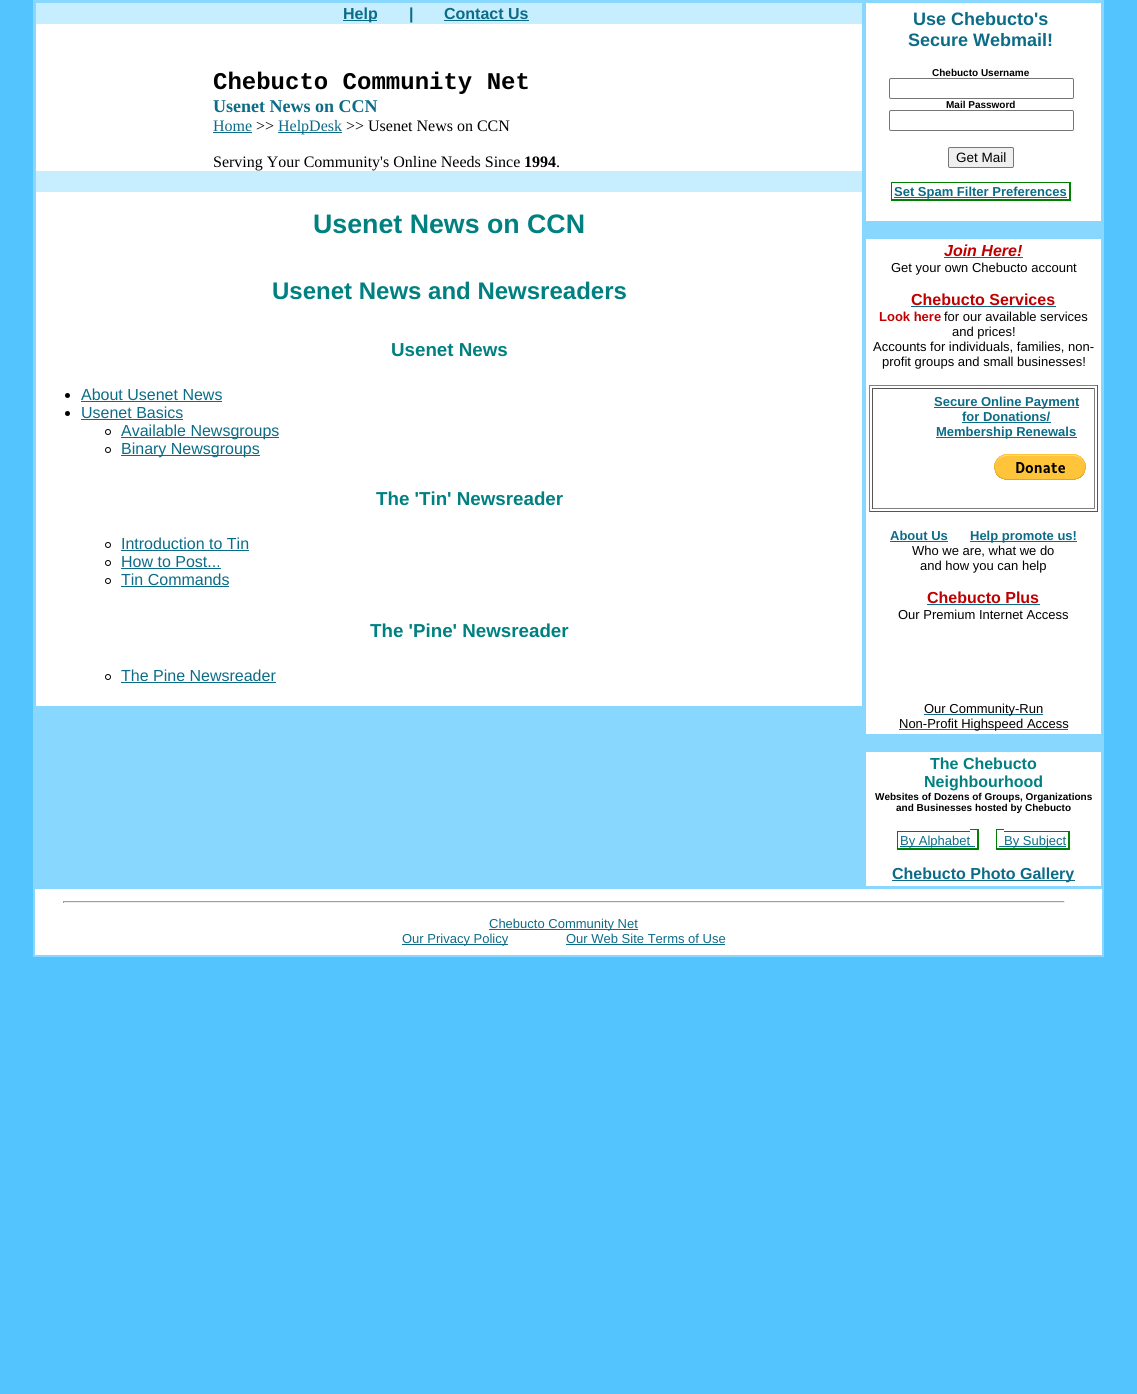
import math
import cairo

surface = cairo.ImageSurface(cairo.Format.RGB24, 1137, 1394)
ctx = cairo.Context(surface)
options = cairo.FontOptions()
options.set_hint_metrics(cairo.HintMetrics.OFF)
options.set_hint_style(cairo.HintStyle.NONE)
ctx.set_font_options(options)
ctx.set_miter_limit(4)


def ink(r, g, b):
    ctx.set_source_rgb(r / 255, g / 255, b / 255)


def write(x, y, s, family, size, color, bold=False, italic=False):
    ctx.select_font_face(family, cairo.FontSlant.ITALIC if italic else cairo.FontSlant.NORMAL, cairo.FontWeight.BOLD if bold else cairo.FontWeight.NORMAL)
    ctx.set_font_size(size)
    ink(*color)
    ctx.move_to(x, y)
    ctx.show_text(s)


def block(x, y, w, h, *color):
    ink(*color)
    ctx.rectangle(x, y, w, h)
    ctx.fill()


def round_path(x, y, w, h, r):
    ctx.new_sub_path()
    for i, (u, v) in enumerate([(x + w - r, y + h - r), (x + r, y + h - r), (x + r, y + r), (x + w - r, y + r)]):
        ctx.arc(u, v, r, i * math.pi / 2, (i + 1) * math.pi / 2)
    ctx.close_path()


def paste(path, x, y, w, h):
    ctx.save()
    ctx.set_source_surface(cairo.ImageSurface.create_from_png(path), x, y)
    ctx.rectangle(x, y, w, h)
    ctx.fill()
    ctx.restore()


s1 = dict(family="Liberation Sans", size=16, color=(12, 108, 135), bold=True)
s2 = dict(family="Liberation Mono", size=24, color=(0, 0, 0), bold=True)
s3 = dict(family="Liberation Serif", size=18, color=(12, 108, 135), bold=True)
s4 = dict(family="Liberation Serif", size=16, color=(12, 108, 135))
s5 = dict(family="Liberation Serif", size=16, color=(0, 0, 0))
s6 = dict(family="Liberation Serif", size=16, color=(0, 0, 0), bold=True)
s7 = dict(family="Liberation Sans", size=26.75, color=(0, 128, 128), bold=True)
s8 = dict(family="Liberation Sans", size=24, color=(0, 128, 128), bold=True)
s9 = dict(family="Liberation Sans", size=18.75, color=(0, 128, 128), bold=True)
s10 = dict(family="Liberation Sans", size=16, color=(12, 108, 135))
s11 = dict(family="Liberation Sans", size=18, color=(12, 108, 135), bold=True)
s12 = dict(family="Liberation Sans", size=10, color=(0, 0, 0), bold=True)
s13 = dict(family="Liberation Sans", size=13.5, color=(0, 0, 0))
s14 = dict(family="Liberation Sans", size=13, color=(12, 108, 135), bold=True)
s15 = dict(family="Liberation Sans", size=16, color=(192, 0, 0), bold=True, italic=True)
s16 = dict(family="Liberation Sans", size=13, color=(0, 0, 0))
s17 = dict(family="Liberation Sans", size=16, color=(192, 0, 0), bold=True)
s18 = dict(family="Liberation Sans", size=13, color=(192, 0, 0), bold=True)
s19 = dict(family="Liberation Sans", size=16, color=(0, 128, 128), bold=True)
s20 = dict(family="Liberation Sans", size=13, color=(12, 108, 135))

ink(84, 196, 254)
ctx.paint()
block(33, 0, 1071, 957, 135, 215, 255)
block(36, 24, 826, 147, 255, 255, 255)
block(36, 3, 826, 21, 198, 238, 255)
block(343, 20, 34, 1, 12, 108, 135)
write(343, 19, "Help", **s1)
write(409, 19, "|", **s1)
write(444, 19, "Contact Us", **s1)
block(444, 20, 85, 1, 12, 108, 135)
write(213, 89, "Chebucto Community Net", **s2)
write(213, 112, "Usenet News on CCN", **s3)
write(213, 131, "Home", **s4)
block(213, 132, 39, 1, 12, 108, 135)
write(256, 131, ">>", **s5)
block(278, 132, 64, 1, 12, 108, 135)
write(278, 131, "HelpDesk", **s4)
write(346, 131, ">> Usenet News on CCN", **s5)
write(213, 167, "Serving Your Community's Online Needs Since", **s5)
write(524, 167, "1994", **s6)
write(556, 167, ".", **s5)
block(36, 192, 826, 514, 255, 255, 255)
block(36, 171, 826, 21, 198, 238, 255)
write(313, 233, "Usenet News on CCN", **s7)
write(272, 299, "Usenet News and Newsreaders", **s8)
write(391, 356, "Usenet News", **s9)
ink(0, 0, 0)
ctx.new_path()
ctx.arc(67.5, 395.5, 2.5, 0, 2 * math.pi)
ctx.fill()
write(81, 400, "About Usenet News", **s10)
block(81, 401, 141, 1, 12, 108, 135)
ink(0, 0, 0)
ctx.new_path()
ctx.arc(67.5, 413.5, 2.5, 0, 2 * math.pi)
ctx.fill()
write(81, 418, "Usenet Basics", **s10)
block(81, 419, 102, 1, 12, 108, 135)
ctx.new_path()
ctx.arc(108, 432, 2.5, 0, 2 * math.pi)
ink(0, 0, 0)
ctx.set_line_width(1)
ctx.stroke()
block(121, 437, 158, 1, 12, 108, 135)
write(121, 436, "Available Newsgroups", **s10)
ctx.new_path()
ctx.arc(108, 450, 2.5, 0, 2 * math.pi)
ink(0, 0, 0)
ctx.stroke()
block(121, 455, 139, 1, 12, 108, 135)
write(121, 454, "Binary Newsgroups", **s10)
write(376, 505, "The 'Tin' Newsreader", **s9)
ctx.new_path()
ctx.arc(108, 545, 2.5, 0, 2 * math.pi)
ink(0, 0, 0)
ctx.stroke()
write(121, 549, "Introduction to Tin", **s10)
block(121, 550, 128, 1, 12, 108, 135)
ctx.new_path()
ctx.arc(108, 563, 2.5, 0, 2 * math.pi)
ink(0, 0, 0)
ctx.stroke()
write(121, 567, "How to Post...", **s10)
block(121, 568, 100, 1, 12, 108, 135)
ctx.new_path()
ctx.arc(108, 581, 2.5, 0, 2 * math.pi)
ink(0, 0, 0)
ctx.stroke()
write(121, 585, "Tin Commands", **s10)
block(121, 586, 108, 1, 12, 108, 135)
write(370, 637, "The 'Pine' Newsreader", **s9)
ctx.new_path()
ctx.arc(108, 677, 2.5, 0, 2 * math.pi)
ink(0, 0, 0)
ctx.stroke()
write(121, 681, "The Pine Newsreader", **s10)
block(121, 682, 155, 1, 12, 108, 135)
block(866, 3, 235, 218, 255, 255, 255)
write(913, 25, "Use Chebucto's", **s11)
write(908, 46, "Secure Webmail!", **s11)
write(932, 76, "Chebucto Username", **s12)
round_path(889.5, 78.5, 184, 20, 1.5)
ink(118, 118, 118)
ctx.stroke()
write(946, 108, "Mail Password", **s12)
round_path(889.5, 110.5, 184, 20, 1.5)
ink(118, 118, 118)
ctx.stroke()
ink(239, 239, 239)
round_path(948.5, 147.5, 65, 20, 1.5)
ctx.fill_preserve()
ink(118, 118, 118)
ctx.stroke()
write(956, 162, "Get Mail", **s13)
block(894, 197, 173, 1, 12, 108, 135)
write(894, 196, "Set Spam Filter Preferences", **s14)
block(891, 182, 180, 1, 0, 128, 0)
block(1069, 182, 2, 19, 0, 128, 0)
block(891, 199, 180, 2, 0, 128, 0)
block(891, 182, 1, 19, 0, 128, 0)
block(866, 239, 235, 495, 255, 255, 255)
write(944, 256, "Join Here!", **s15)
block(944, 257, 79, 1, 12, 108, 135)
write(891, 272, "Get your own Chebucto account", **s16)
write(911, 305, "Chebucto Services", **s17)
block(911, 306, 145, 1, 12, 108, 135)
write(879, 321, "Look here", **s18)
write(944, 321, "for our available services", **s16)
write(952, 336, "and prices!", **s16)
write(873, 351, "Accounts for individuals, families, non-", **s16)
write(882, 366, "profit groups and small businesses!", **s16)
block(869, 385, 229, 1, 128, 128, 128)
block(1097, 385, 1, 127, 85, 85, 85)
block(869, 511, 229, 1, 85, 85, 85)
block(869, 385, 1, 127, 128, 128, 128)
block(872, 388, 223, 1, 85, 85, 85)
block(1094, 388, 1, 121, 128, 128, 128)
block(872, 508, 223, 1, 128, 128, 128)
block(872, 388, 1, 121, 85, 85, 85)
block(934, 407, 145, 1, 12, 108, 135)
write(934, 406, "Secure Online Payment", **s14)
write(962, 421, "for Donations/", **s14)
block(962, 422, 89, 1, 12, 108, 135)
block(936, 437, 141, 1, 12, 108, 135)
write(936, 436, "Membership Renewals", **s14)
paste("pic1.png", 994, 454, 92, 26)
write(890, 540, "About Us", **s14)
block(890, 541, 58, 1, 12, 108, 135)
block(970, 541, 107, 1, 12, 108, 135)
write(970, 540, "Help promote us!", **s14)
write(912, 555, "Who we are, what we do", **s16)
write(920, 570, "and how you can help", **s16)
write(927, 603, "Chebucto Plus", **s17)
block(927, 604, 113, 1, 12, 108, 135)
write(898, 619, "Our Premium Internet Access", **s16)
block(924, 714, 119, 1, 12, 108, 135)
write(924, 713, "Our Community-Run", **s16)
block(899, 729, 169, 1, 12, 108, 135)
write(899, 728, "Non-Profit Highspeed Access", **s16)
block(866, 752, 235, 134, 255, 255, 255)
write(930, 769, "The Chebucto", **s19)
write(924, 787, "Neighbourhood", **s19)
write(875, 800, "Websites of Dozens of Groups, Organizations", **s12)
write(896, 811, "and Businesses hosted by Chebucto", **s12)
block(900, 846, 70, 1, 12, 108, 135)
write(900, 845, "By Alphabet", **s20)
block(897, 831, 73, 1, 0, 128, 0)
block(897, 848, 73, 2, 0, 128, 0)
block(897, 831, 1, 19, 0, 128, 0)
block(970, 829, 9, 1, 0, 128, 0)
block(977, 829, 2, 21, 0, 128, 0)
block(970, 848, 9, 2, 0, 128, 0)
block(970, 846, 5, 1, 12, 108, 135)
block(999, 846, 67, 1, 12, 108, 135)
write(1004, 845, "By Subject", **s20)
block(996, 829, 8, 1, 0, 128, 0)
block(996, 848, 8, 2, 0, 128, 0)
block(996, 829, 1, 21, 0, 128, 0)
block(1004, 831, 66, 1, 0, 128, 0)
block(1068, 831, 2, 19, 0, 128, 0)
block(1004, 848, 66, 2, 0, 128, 0)
block(892, 880, 183, 1, 12, 108, 135)
write(892, 879, "Chebucto Photo Gallery", **s1)
block(35, 889, 1067, 66, 255, 255, 255)
block(63, 901, 1002, 1, 159, 159, 159)
block(1064, 901, 1, 2, 238, 238, 238)
block(63, 902, 1002, 1, 238, 238, 238)
block(63, 901, 1, 2, 159, 159, 159)
block(489, 929, 149, 1, 12, 108, 135)
write(489, 928, "Chebucto Community Net", **s20)
block(402, 944, 106, 1, 12, 108, 135)
write(402, 943, "Our Privacy Policy", **s20)
write(566, 943, "Our Web Site Terms of Use", **s20)
block(566, 944, 159, 1, 12, 108, 135)
surface.write_to_png("screenshot.png")
